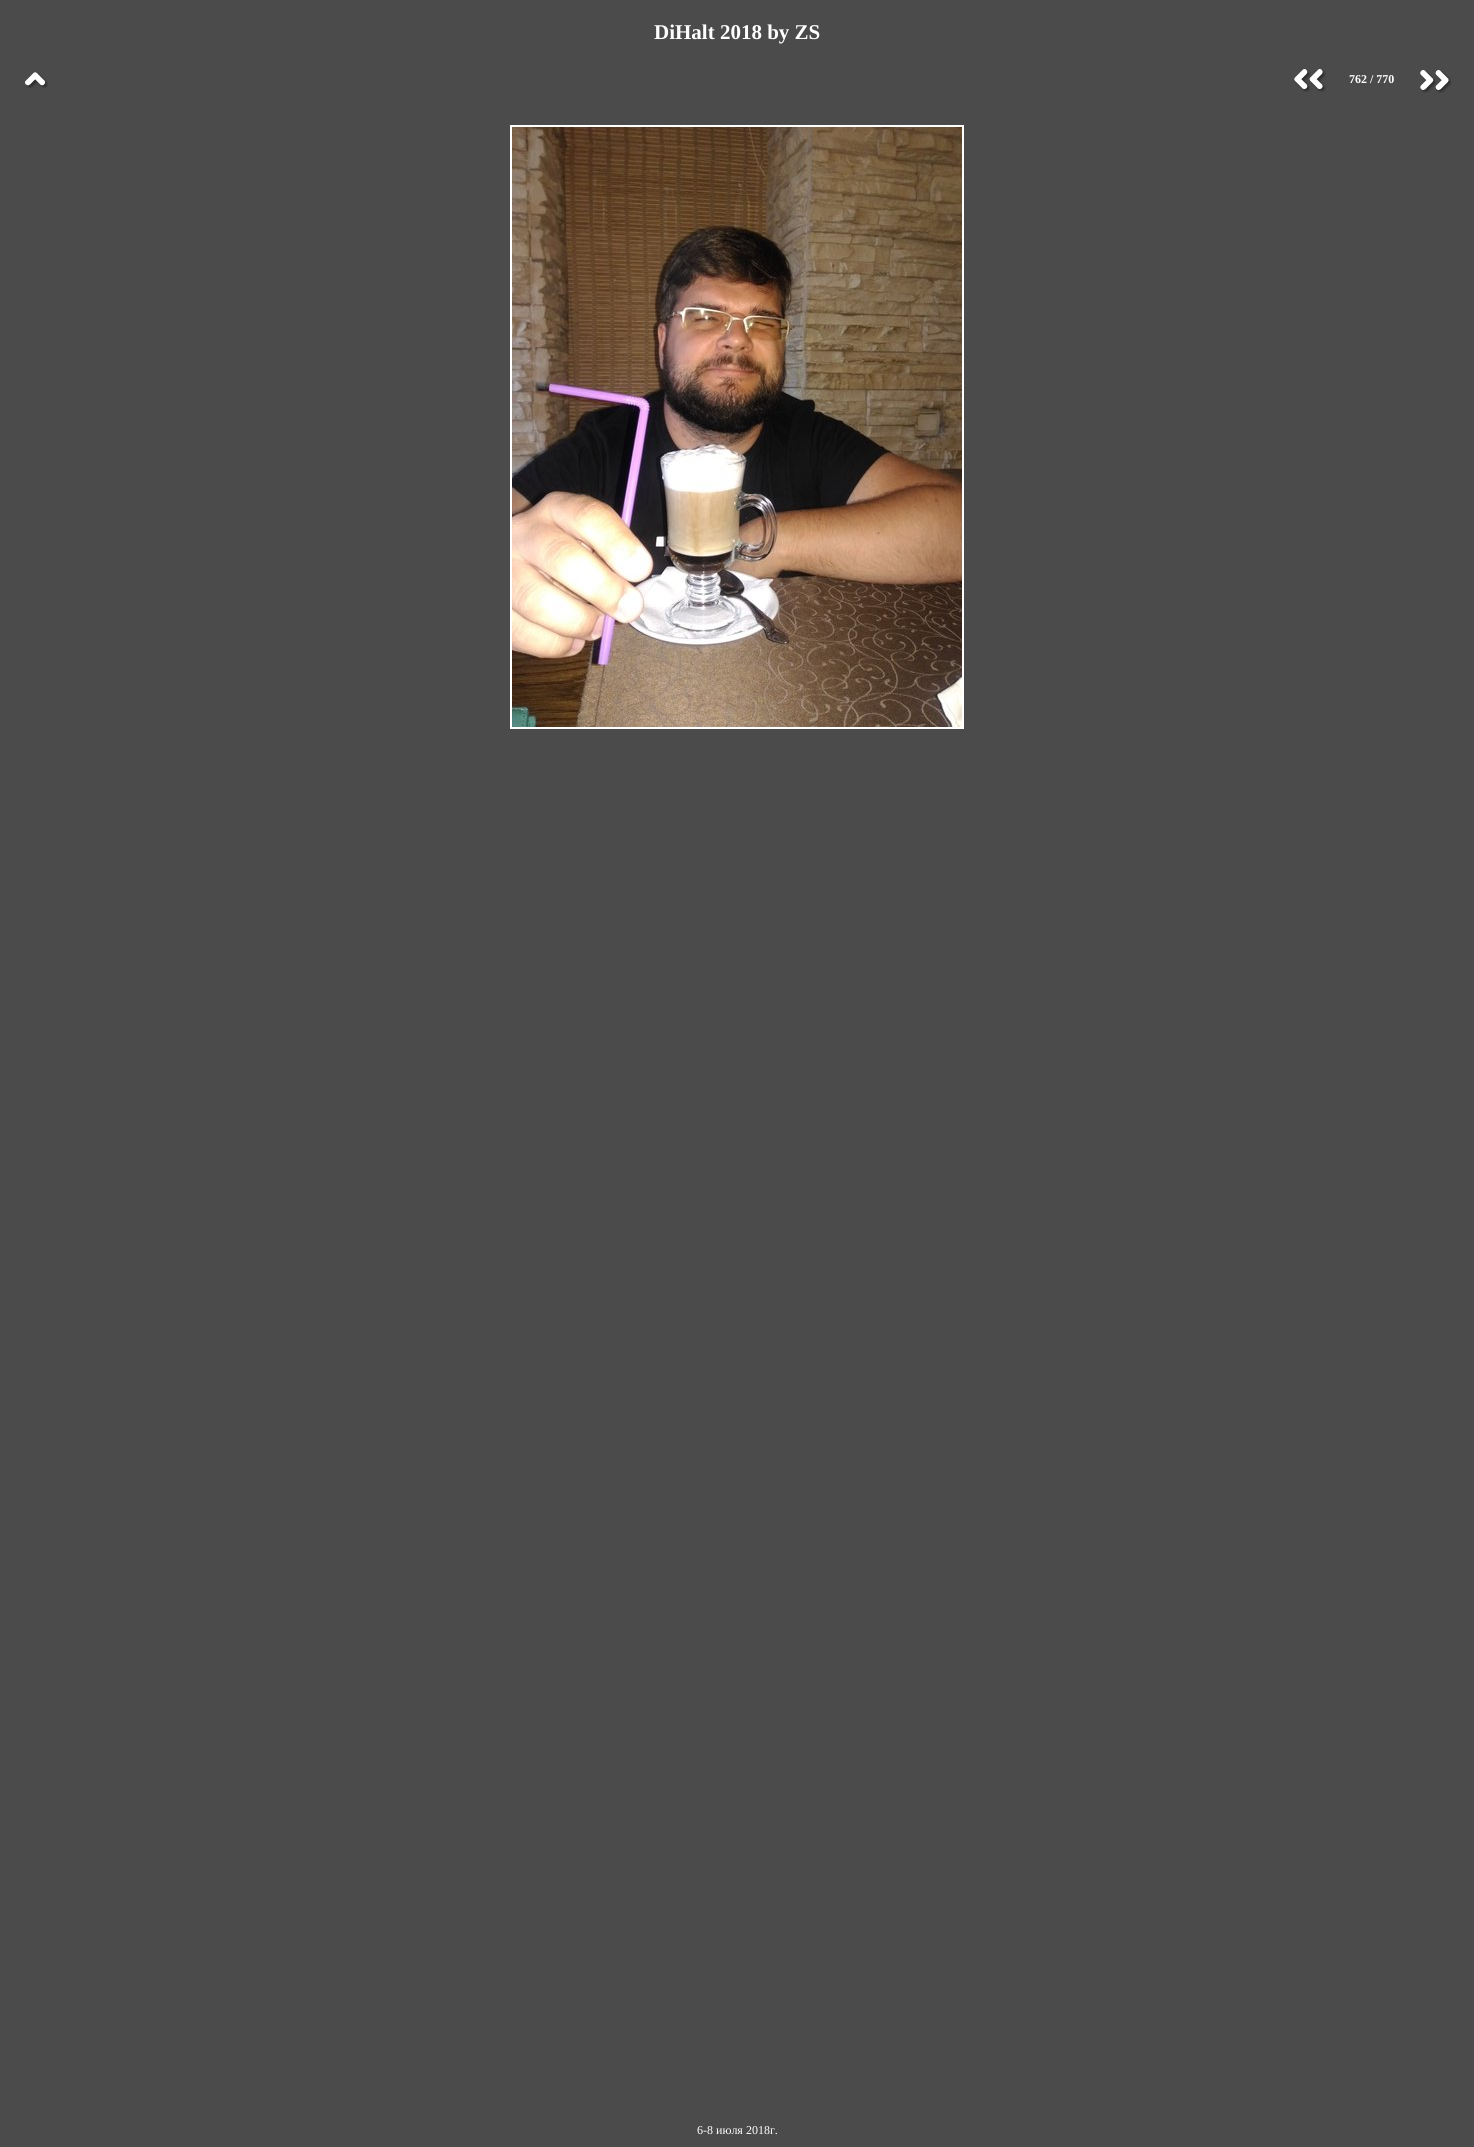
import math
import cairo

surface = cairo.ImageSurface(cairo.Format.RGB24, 1474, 2147)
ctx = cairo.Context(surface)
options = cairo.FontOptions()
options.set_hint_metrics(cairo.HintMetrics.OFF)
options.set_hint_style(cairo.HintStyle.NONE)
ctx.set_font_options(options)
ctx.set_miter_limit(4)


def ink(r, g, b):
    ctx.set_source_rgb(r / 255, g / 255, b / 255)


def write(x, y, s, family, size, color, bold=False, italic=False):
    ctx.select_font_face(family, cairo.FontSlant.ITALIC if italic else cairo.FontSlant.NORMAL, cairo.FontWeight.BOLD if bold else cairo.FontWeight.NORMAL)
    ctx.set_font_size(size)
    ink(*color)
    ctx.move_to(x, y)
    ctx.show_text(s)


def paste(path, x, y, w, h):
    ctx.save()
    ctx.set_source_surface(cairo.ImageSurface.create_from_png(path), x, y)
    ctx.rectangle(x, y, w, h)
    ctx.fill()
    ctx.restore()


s1 = dict(family="Liberation Serif", size=21, color=(255, 255, 255), bold=True)
s2 = dict(family="Liberation Serif", size=12, color=(255, 255, 255), bold=True)
s3 = dict(family="Liberation Serif", size=12, color=(255, 255, 255))

ink(75, 75, 75)
ctx.paint()
write(654, 39, "DiHalt 2018 by ZS", **s1)
paste("pic1.png", 25, 72, 23, 16)
paste("pic2.png", 1294, 69, 32, 23)
write(1349, 83, "762 / 770", **s2)
paste("pic3.png", 1420, 70, 32, 23)
ctx.rectangle(511, 126, 452, 602)
ctx.stroke()
paste("pic4.png", 512, 127, 450, 600)
write(697, 2134, "6-8 июля 2018г.", **s3)
surface.write_to_png("screenshot.png")
